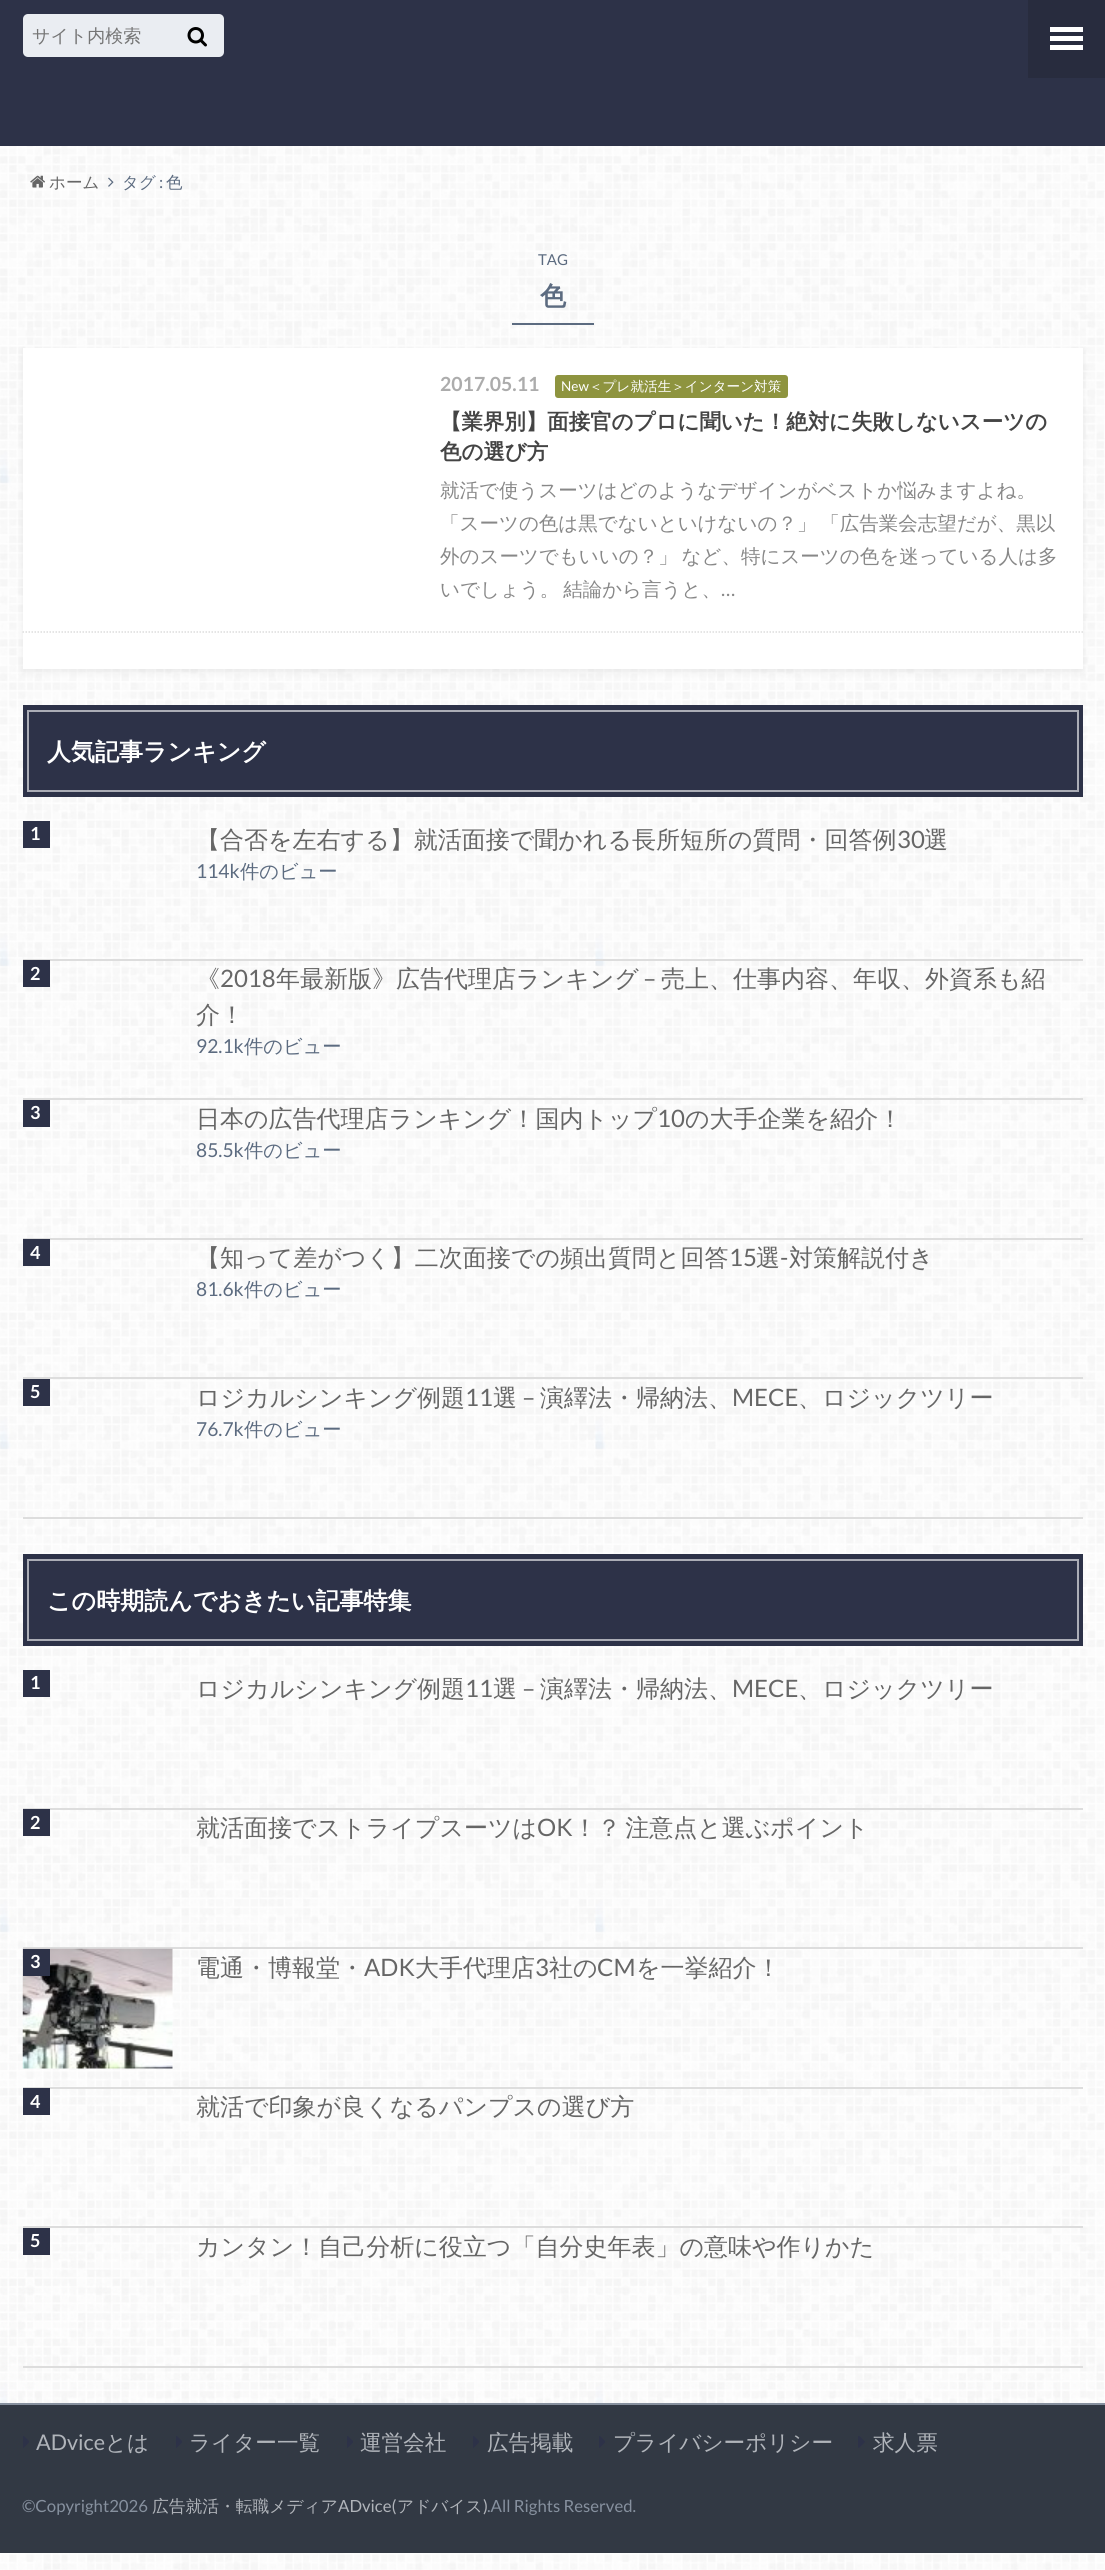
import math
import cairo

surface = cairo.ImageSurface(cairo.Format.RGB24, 1105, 2570)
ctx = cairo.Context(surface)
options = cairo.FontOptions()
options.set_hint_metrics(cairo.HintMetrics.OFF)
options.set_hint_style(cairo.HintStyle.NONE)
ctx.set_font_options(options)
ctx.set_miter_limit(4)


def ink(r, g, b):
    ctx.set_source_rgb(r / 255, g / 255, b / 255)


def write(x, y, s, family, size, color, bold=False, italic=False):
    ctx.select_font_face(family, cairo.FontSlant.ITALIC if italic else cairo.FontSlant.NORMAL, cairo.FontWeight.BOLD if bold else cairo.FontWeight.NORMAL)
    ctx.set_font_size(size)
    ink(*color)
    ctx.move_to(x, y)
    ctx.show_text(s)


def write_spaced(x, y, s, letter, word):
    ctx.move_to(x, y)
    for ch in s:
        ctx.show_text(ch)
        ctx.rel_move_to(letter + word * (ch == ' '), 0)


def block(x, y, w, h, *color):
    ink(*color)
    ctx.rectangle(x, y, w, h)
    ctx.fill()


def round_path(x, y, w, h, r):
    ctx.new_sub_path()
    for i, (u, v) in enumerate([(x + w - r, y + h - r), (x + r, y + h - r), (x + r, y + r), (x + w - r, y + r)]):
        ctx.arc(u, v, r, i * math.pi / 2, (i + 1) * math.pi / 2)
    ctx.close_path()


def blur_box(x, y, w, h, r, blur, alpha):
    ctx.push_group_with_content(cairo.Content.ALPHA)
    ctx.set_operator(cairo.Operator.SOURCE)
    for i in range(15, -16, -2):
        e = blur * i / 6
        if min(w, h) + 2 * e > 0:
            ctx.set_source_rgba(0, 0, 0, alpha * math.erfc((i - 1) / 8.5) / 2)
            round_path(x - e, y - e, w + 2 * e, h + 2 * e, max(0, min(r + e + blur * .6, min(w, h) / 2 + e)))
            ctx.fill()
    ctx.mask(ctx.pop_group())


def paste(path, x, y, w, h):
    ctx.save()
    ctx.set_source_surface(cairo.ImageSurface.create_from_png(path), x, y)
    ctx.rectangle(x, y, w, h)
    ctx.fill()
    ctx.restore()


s1 = dict(family="WenQuanYi Zen Hei Medium", size=18, color=(117, 117, 117))
s2 = dict(family="WenQuanYi Zen Hei Medium", size=16.5, color=(102, 102, 102))
s3 = dict(family="WenQuanYi Zen Hei Medium", size=16.5, color=(92, 107, 128))
s4 = dict(family="Lato", size=16.5, color=(92, 107, 128))
s5 = dict(family="Lato", size=15, color=(92, 107, 128))
s6 = dict(family="WenQuanYi Zen Hei", size=26, color=(92, 107, 128), bold=True)
s7 = dict(family="Lato", size=19.5, color=(172, 172, 172), bold=True)
s8 = dict(family="Lato", size=13.6, color=(255, 255, 255))
s9 = dict(family="WenQuanYi Zen Hei Medium", size=13.6, color=(255, 255, 255))
s10 = dict(family="WenQuanYi Zen Hei", size=21.45, color=(68, 68, 68), bold=True)
s11 = dict(family="WenQuanYi Zen Hei Medium", size=19.5, color=(136, 136, 136))
s12 = dict(family="Lato", size=19.5, color=(136, 136, 136))
s13 = dict(family="WenQuanYi Zen Hei", size=24, color=(255, 255, 255), bold=True)
s14 = dict(family="Lato", size=18, color=(255, 255, 255), bold=True)
s15 = dict(family="WenQuanYi Zen Hei Medium", size=24, color=(102, 102, 102))
s16 = dict(family="Lato", size=24, color=(102, 102, 102))
s17 = dict(family="Lato", size=19.25, color=(92, 107, 128))
s18 = dict(family="WenQuanYi Zen Hei Medium", size=19.25, color=(92, 107, 128))
s19 = dict(family="Lato", size=21.6, color=(176, 180, 186))
s20 = dict(family="WenQuanYi Zen Hei Medium", size=21.6, color=(176, 180, 186))
s21 = dict(family="Lato", size=16.75, color=(134, 144, 158))
s22 = dict(family="WenQuanYi Zen Hei Medium", size=16.75, color=(176, 180, 186))
s23 = dict(family="Lato", size=16.75, color=(176, 180, 186))

ink(255, 255, 255)
ctx.paint()
paste("pic1.png", 0, 146, 1105, 2424)
block(0, 0, 1105, 146, 45, 50, 72)
ink(234, 237, 242)
round_path(23, 14, 201, 43, 5)
ctx.fill()
write(32, 42, "サイト内検索", **s1)
paste("pic2.png", 187, 27, 20, 20)
paste("pic3.png", 30, 175, 15, 13)
write(49, 188, "ホーム", **s2)
paste("pic4.png", 108, 177, 6, 10)
write(122, 188, "タグ", **s3)
write(159, 188, ":", **s4)
write(166, 188, "色", **s3)
block(512, 323, 82, 2, 92, 107, 128)
write(538, 265, "TAG", **s5)
write(540, 305, "色", **s6)
ink(138, 138, 138)
blur_box(23, 351, 1060, 321, 0, 4, 0.15)
block(23, 348, 1060, 321, 255, 255, 255)
ctx.new_path()
ctx.move_to(22.5, 632)
ctx.line_to(1083, 632)
ink(221, 221, 221)
ctx.set_line_width(1.5)
ctx.set_dash([1.5, 1.5])
ctx.stroke()
write(440, 391, "2017.05.11", **s7)
ink(142, 148, 63)
round_path(555, 375, 233, 23, 3)
ctx.fill()
write(561, 391, "New", **s8)
write(589, 391, "＜プレ就活生＞インターン対策", **s9)
write(440, 429, "【業界別】面接官のプロに聞いた！絶対に失敗しないスーツの", **s10)
write(440, 459, "色の選び方", **s10)
write(440, 497, "就活で使うスーツはどのようなデザインがベストか悩みますよね。", **s11)
write_spaced(440, 530, "「スーツの色は黒でないといけないの？」 「広告業会志望だが、黒以", 0, -2)
write_spaced(440, 563, "外のスーツでもいいの？」 など、特にスーツの色を迷っている人は多", 0, -2)
write_spaced(440, 596, "いでしょう。 結論から言うと、", 0, -2)
write(721, 596, "…", **s12)
block(23, 705, 1060, 92, 45, 50, 72)
ctx.rectangle(28, 711, 1050, 80)
ink(171, 173, 182)
ctx.set_line_width(2)
ctx.set_dash([])
ctx.stroke()
write(47, 760, "人気記事ランキング", **s13)
block(23, 959, 1060, 2, 221, 221, 221)
block(23, 821, 27, 27, 45, 50, 72)
write(30, 840, "1", **s14)
write(196, 848, "【合否を左右する】就活面接で聞かれる長所短所の質問・回答例", **s15)
write(897, 848, "30", **s16)
write(924, 848, "選", **s15)
write(196, 878, "114k", **s17)
write(240, 878, "件のビュー", **s18)
block(23, 1098, 1060, 2, 221, 221, 221)
block(23, 960, 27, 27, 45, 50, 72)
write(30, 980, "2", **s14)
write(196, 987, "《", **s15)
write(220, 987, "2018", **s16)
write(276, 987, "年最新版》広告代理店ランキング", **s15)
write(643, 987, "–", **s16)
write(661, 987, "売上、仕事内容、年収、外資系も紹", **s15)
write(196, 1023, "介！", **s15)
write(196, 1053, "92.1k", **s17)
write(244, 1053, "件のビュー", **s18)
block(23, 1238, 1060, 2, 221, 221, 221)
block(23, 1100, 27, 27, 45, 50, 72)
write(30, 1119, "3", **s14)
write(196, 1127, "日本の広告代理店ランキング！国内トップ", **s15)
write(657, 1127, "10", **s16)
write(685, 1127, "の大手企業を紹介！", **s15)
write(196, 1157, "85.5k", **s17)
write(244, 1157, "件のビュー", **s18)
block(23, 1377, 1060, 2, 221, 221, 221)
block(23, 1239, 27, 27, 45, 50, 72)
write(30, 1259, "4", **s14)
write(196, 1266, "【知って差がつく】二次面接での頻出質問と回答", **s15)
write(729, 1266, "15", **s16)
write(756, 1266, "選", **s15)
write(780, 1266, "-", **s16)
write(789, 1266, "対策解説付き", **s15)
write(196, 1296, "81.6k", **s17)
write(244, 1296, "件のビュー", **s18)
block(23, 1517, 1060, 2, 221, 221, 221)
block(23, 1379, 27, 27, 45, 50, 72)
write(30, 1398, "5", **s14)
write(196, 1406, "ロジカルシンキング例題", **s15)
write(465, 1406, "11", **s16)
write(493, 1406, "選", **s15)
write(522, 1406, "–", **s16)
write(540, 1406, "演繹法・帰納法、", **s15)
write(732, 1406, "MECE", **s16)
write(798, 1406, "、ロジックツリー", **s15)
write(196, 1436, "76.7k", **s17)
write(244, 1436, "件のビュー", **s18)
block(23, 1554, 1060, 92, 45, 50, 72)
ctx.rectangle(28, 1560, 1050, 80)
ink(171, 173, 182)
ctx.stroke()
write(47, 1609, "この時期読んでおきたい記事特集", **s13)
block(23, 1808, 1060, 2, 221, 221, 221)
block(23, 1670, 27, 27, 45, 50, 72)
write(30, 1689, "1", **s14)
write(196, 1697, "ロジカルシンキング例題", **s15)
write(465, 1697, "11", **s16)
write(493, 1697, "選", **s15)
write(522, 1697, "–", **s16)
write(540, 1697, "演繹法・帰納法、", **s15)
write(732, 1697, "MECE", **s16)
write(798, 1697, "、ロジックツリー", **s15)
block(23, 1947, 1060, 2, 221, 221, 221)
block(23, 1809, 27, 27, 45, 50, 72)
write(30, 1829, "2", **s14)
write(196, 1836, "就活面接でストライプスーツは", **s15)
write(537, 1836, "OK", **s16)
ctx.select_font_face("WenQuanYi Zen Hei Medium")
write_spaced(573, 1836, "！？ 注意点と選ぶポイント", 0, -3)
block(23, 2087, 1060, 2, 221, 221, 221)
paste("pic5.png", 22, 1948, 151, 121)
block(23, 1949, 27, 27, 45, 50, 72)
write(30, 1968, "3", **s14)
write(196, 1976, "電通・博報堂・", **s15)
write(364, 1976, "ADK", **s16)
write(415, 1976, "大手代理店", **s15)
write(535, 1976, "3", **s16)
write(549, 1976, "社の", **s15)
write(597, 1976, "CM", **s16)
write(636, 1976, "を一挙紹介！", **s15)
block(23, 2226, 1060, 2, 221, 221, 221)
block(23, 2088, 27, 27, 45, 50, 72)
write(30, 2108, "4", **s14)
write(196, 2115, "就活で印象が良くなるパンプスの選び方", **s15)
block(23, 2366, 1060, 2, 221, 221, 221)
block(23, 2228, 27, 27, 45, 50, 72)
write(30, 2247, "5", **s14)
write(196, 2255, "カンタン！自己分析に役立つ「自分史年表」の意味や作りかた", **s15)
block(0, 2403, 1105, 2, 134, 144, 158)
block(0, 2405, 1105, 148, 50, 57, 68)
paste("pic6.png", 23, 2436, 6, 12)
write(36, 2450, "ADvice", **s19)
write(105, 2450, "とは", **s20)
paste("pic6.png", 176, 2436, 6, 12)
write(189, 2450, "ライター一覧", **s20)
paste("pic6.png", 347, 2436, 6, 12)
write(360, 2450, "運営会社", **s20)
paste("pic6.png", 473, 2436, 6, 12)
write(487, 2450, "広告掲載", **s20)
paste("pic6.png", 599, 2436, 6, 12)
write(613, 2450, "プライバシーポリシー", **s20)
paste("pic7.png", 858, 2436, 7, 12)
write(873, 2450, "求人票", **s20)
write(22, 2512, "©Copyright2026", **s21)
write(152, 2512, "広告就活・転職メディア", **s22)
write(338, 2512, "ADvice(", **s23)
write(397, 2512, "アドバイス", **s22)
write(483, 2512, ")", **s23)
write(487, 2512, ".All Rights Reserved.", **s21)
block(1028, 0, 77, 78, 40, 44, 62)
block(1050, 27, 33, 5, 255, 255, 255)
block(1050, 36, 33, 5, 255, 255, 255)
block(1050, 45, 33, 5, 255, 255, 255)
surface.write_to_png("screenshot.png")
